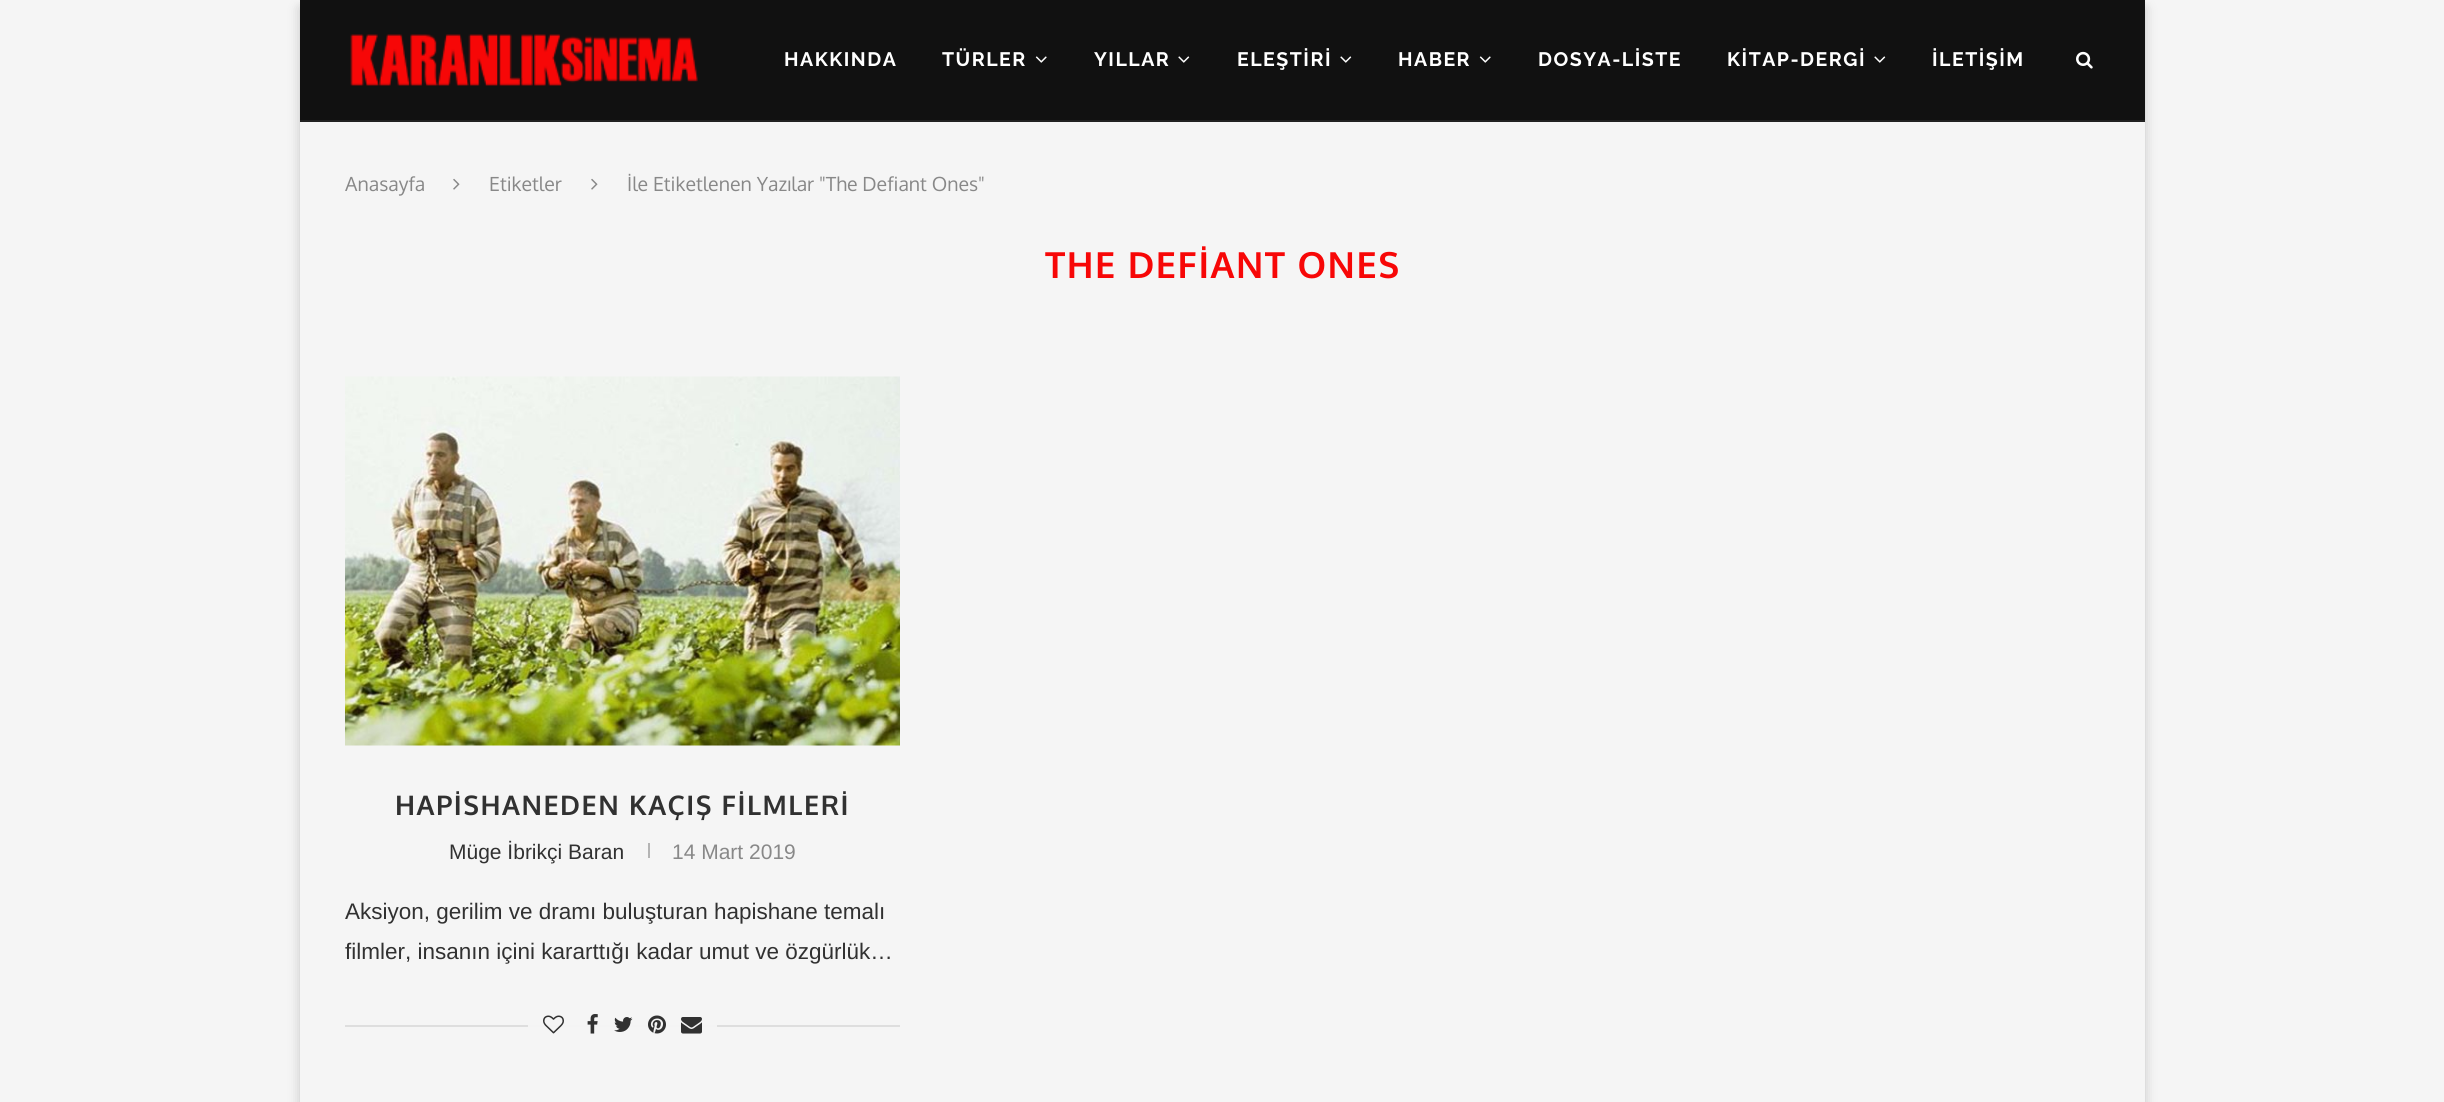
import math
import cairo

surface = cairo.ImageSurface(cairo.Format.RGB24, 2444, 1102)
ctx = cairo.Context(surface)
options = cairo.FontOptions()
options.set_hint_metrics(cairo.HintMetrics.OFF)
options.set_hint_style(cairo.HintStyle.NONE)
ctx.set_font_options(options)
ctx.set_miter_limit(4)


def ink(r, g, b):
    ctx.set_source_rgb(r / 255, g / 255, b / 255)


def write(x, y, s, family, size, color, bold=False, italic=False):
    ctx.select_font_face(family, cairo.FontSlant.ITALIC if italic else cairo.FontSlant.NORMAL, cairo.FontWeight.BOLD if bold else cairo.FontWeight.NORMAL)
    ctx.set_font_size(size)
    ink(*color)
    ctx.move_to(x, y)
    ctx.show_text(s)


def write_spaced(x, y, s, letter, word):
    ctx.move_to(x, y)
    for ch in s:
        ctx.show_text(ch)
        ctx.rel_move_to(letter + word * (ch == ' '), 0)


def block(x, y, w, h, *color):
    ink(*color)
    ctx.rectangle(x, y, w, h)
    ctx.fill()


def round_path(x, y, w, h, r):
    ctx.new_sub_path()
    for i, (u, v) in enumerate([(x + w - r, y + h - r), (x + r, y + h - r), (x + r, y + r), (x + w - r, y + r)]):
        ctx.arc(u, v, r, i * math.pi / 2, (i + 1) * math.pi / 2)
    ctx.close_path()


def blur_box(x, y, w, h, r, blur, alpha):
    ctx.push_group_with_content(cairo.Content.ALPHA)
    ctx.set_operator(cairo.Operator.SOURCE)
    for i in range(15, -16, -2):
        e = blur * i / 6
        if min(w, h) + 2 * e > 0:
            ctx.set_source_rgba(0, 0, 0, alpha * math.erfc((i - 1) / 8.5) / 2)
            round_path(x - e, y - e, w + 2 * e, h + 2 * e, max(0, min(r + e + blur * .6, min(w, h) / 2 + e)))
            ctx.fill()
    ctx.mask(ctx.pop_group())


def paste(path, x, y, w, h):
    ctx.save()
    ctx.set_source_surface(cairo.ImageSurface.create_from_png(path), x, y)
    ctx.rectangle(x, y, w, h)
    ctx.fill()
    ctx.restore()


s1 = dict(family="Oxygen", size=19.5, color=(136, 136, 136))
s2 = dict(family="Liberation Sans", size=21, color=(49, 49, 49))
s3 = dict(family="Liberation Sans", size=21, color=(136, 136, 136))
s4 = dict(family="Liberation Sans", size=22.5, color=(49, 49, 49))

ink(245, 245, 245)
ctx.paint()
ctx.save()
ctx.set_fill_rule(cairo.FillRule.EVEN_ODD)
ctx.new_path()
ctx.move_to(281, 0)
ctx.line_to(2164, 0)
ctx.line_to(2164, 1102)
ctx.line_to(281, 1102)
ctx.close_path()
ctx.move_to(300, 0)
ctx.line_to(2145, 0)
ctx.line_to(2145, 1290)
ctx.line_to(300, 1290)
ctx.close_path()
ctx.clip()
ink(0, 0, 0)
blur_box(300, 8, 1845, 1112, 0, 6, 0.2)
ctx.restore()
block(300, 0, 1845, 120, 17, 17, 17)
block(300, 120, 1845, 2, 33, 33, 33)
paste("pic1.png", 350, 34, 348, 52)
ctx.select_font_face("Raleway", cairo.FontSlant.NORMAL, cairo.FontWeight.BOLD)
ctx.set_font_size(19.5)
ink(255, 255, 255)
write_spaced(784, 66, "HAKKINDA", 1.5, 0)
write_spaced(942, 66, "TÜRLER", 1.5, 0)
paste("pic2.png", 1035, 56, 12, 7)
write_spaced(1094, 66, "YILLAR", 1.5, 0)
paste("pic3.png", 1178, 56, 12, 7)
write_spaced(1237, 66, "ELEŞTİRİ", 1.5, 0)
paste("pic3.png", 1340, 56, 12, 7)
write_spaced(1398, 66, "HABER", 1.5, 0)
paste("pic2.png", 1479, 56, 12, 7)
write_spaced(1538, 66, "DOSYA-LİSTE", 1.5, 0)
write_spaced(1727, 66, "KİTAP-DERGİ", 1.5, 0)
paste("pic3.png", 1874, 56, 12, 7)
write_spaced(1932, 66, "İLETİŞİM", 1.5, 0)
paste("pic4.png", 2076, 51, 17, 18)
write(345, 191, "Anasayfa", **s1)
paste("pic5.png", 453, 178, 7, 12)
write(489, 191, "Etiketler", **s1)
paste("pic5.png", 591, 178, 7, 12)
write(627, 191, "İle Etiketlenen Yazılar \"The Defiant Ones\"", **s1)
ctx.select_font_face("Oxygen", cairo.FontSlant.NORMAL, cairo.FontWeight.BOLD)
ctx.set_font_size(36)
ink(247, 7, 7)
write_spaced(1045, 278, "THE DEFİANT ONES", 1.5, 0)
paste("pic6.png", 345, 376, 555, 370)
ctx.set_font_size(27)
ink(49, 49, 49)
write_spaced(395, 815, "HAPİSHANEDEN KAÇIŞ FİLMLERİ", 1.5, 0)
write(449, 859, "Müge İbrikçi Baran", **s2)
block(648, 843, 2, 15, 180, 180, 180)
write(672, 859, "14 Mart 2019", **s3)
write(345, 919, "Aksiyon, gerilim ve dramı buluşturan hapishane temalı", **s4)
write(345, 959, "filmler, insanın içini kararttığı kadar umut ve özgürlük…", **s4)
block(345, 1025, 555, 2, 222, 222, 222)
block(528, 1025, 189, 2, 244, 244, 244)
paste("pic7.png", 543, 1015, 21, 19)
paste("pic8.png", 587, 1014, 11, 20)
paste("pic9.png", 614, 1017, 19, 15)
paste("pic10.png", 648, 1015, 18, 19)
paste("pic11.png", 681, 1017, 21, 17)
surface.write_to_png("screenshot.png")
